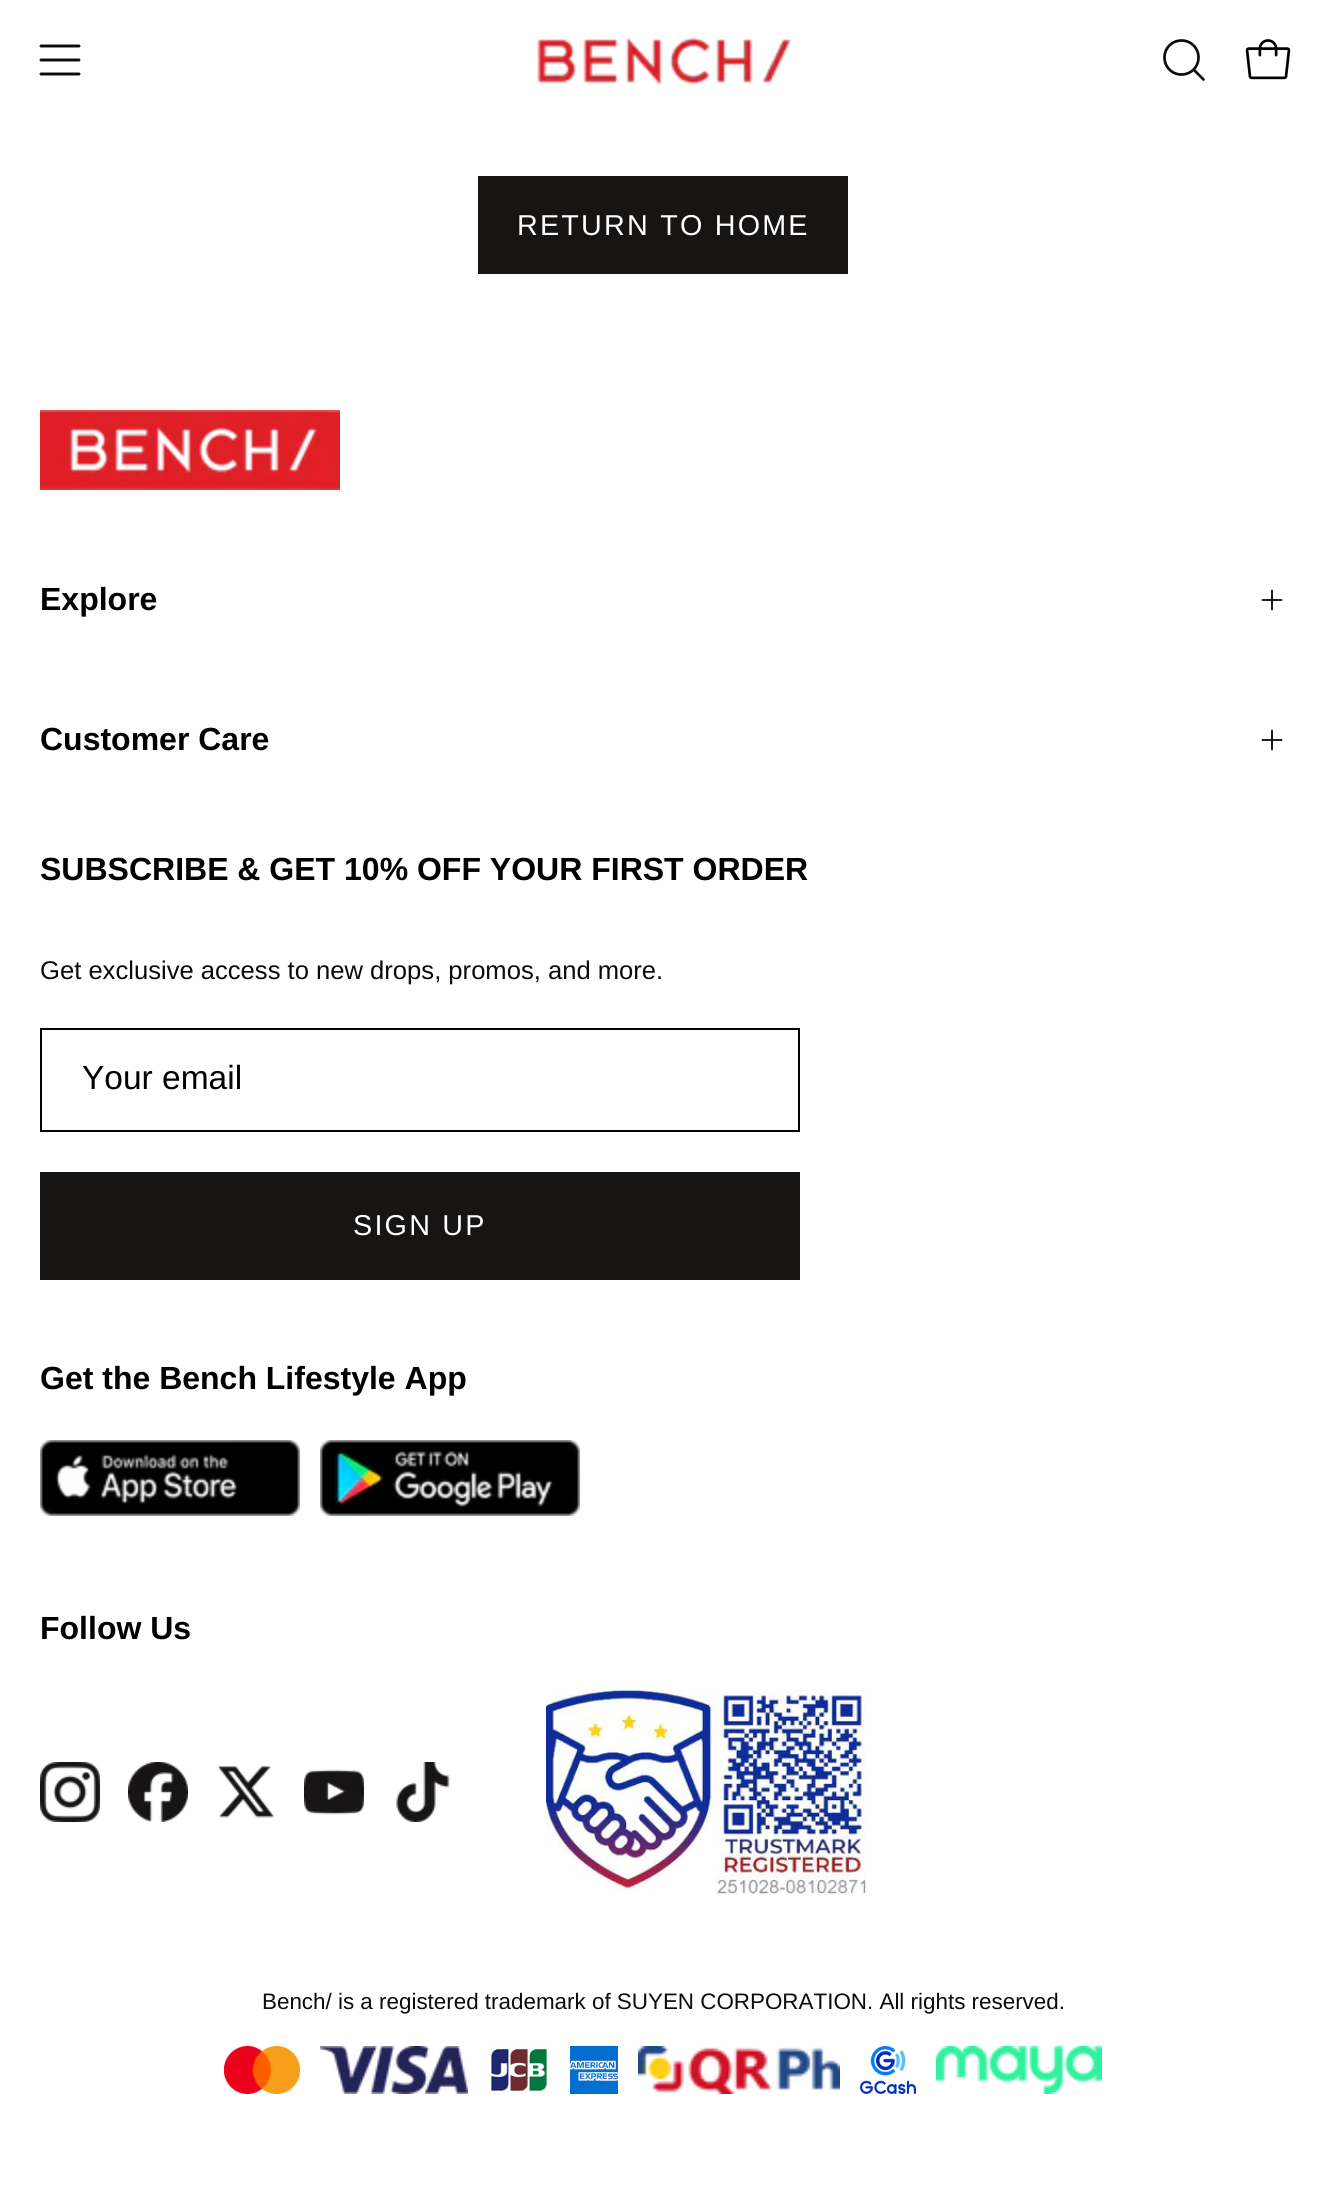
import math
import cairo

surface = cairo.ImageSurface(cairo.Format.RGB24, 1326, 2210)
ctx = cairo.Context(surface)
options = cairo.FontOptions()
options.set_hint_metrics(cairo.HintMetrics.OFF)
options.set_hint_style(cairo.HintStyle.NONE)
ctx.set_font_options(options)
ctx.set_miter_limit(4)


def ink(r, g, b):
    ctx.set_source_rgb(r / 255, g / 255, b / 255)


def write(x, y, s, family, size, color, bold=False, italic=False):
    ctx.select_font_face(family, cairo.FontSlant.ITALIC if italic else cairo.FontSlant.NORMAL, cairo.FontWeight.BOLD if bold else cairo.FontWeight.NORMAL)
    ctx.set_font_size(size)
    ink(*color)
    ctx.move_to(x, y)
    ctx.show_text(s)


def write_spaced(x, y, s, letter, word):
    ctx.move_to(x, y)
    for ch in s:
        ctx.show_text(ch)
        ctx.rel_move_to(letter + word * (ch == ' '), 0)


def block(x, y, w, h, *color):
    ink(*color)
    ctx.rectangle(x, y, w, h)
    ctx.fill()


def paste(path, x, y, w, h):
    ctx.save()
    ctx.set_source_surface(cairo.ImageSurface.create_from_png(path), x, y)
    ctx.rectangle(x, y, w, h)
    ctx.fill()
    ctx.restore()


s1 = dict(family="Liberation Sans", size=32, color=(0, 0, 0), bold=True)
s2 = dict(family="Liberation Sans", size=25.6, color=(11, 11, 11))
s3 = dict(family="Liberation Sans", size=33.5, color=(0, 0, 0))
s4 = dict(family="Liberation Sans", size=22.4, color=(11, 11, 11))

ink(255, 255, 255)
ctx.paint()
ctx.new_path()
ctx.move_to(41, 60)
ctx.line_to(79, 60)
ctx.move_to(41, 46)
ctx.line_to(79, 46)
ctx.move_to(41, 74)
ctx.line_to(79, 74)
ink(11, 11, 11)
ctx.set_line_width(2.9)
ctx.set_line_cap(cairo.LineCap.ROUND)
ctx.set_line_join(cairo.LineJoin.ROUND)
ctx.stroke()
paste("pic1.png", 537, 37, 254, 48)
ctx.new_path()
ctx.move_to(1181.5, 74.5)
ctx.curve_to(1191, 74.5, 1198.5, 67, 1198.5, 57.5)
ctx.curve_to(1198.5, 48, 1191, 40.5, 1181.5, 40.5)
ctx.curve_to(1172, 40.5, 1164.5, 48, 1164.5, 57.5)
ctx.curve_to(1164.5, 67, 1172, 74.5, 1181.5, 74.5)
ctx.close_path()
ctx.move_to(1193.5, 69.5)
ctx.line_to(1203.5, 79.5)
ctx.set_line_width(2.7)
ctx.stroke()
paste("pic2.png", 1245, 39, 46, 41)
block(478, 176, 370, 98, 23, 20, 20)
ctx.select_font_face("Liberation Sans")
ctx.set_font_size(28.75)
ink(255, 255, 255)
write_spaced(517, 235, "RETURN TO HOME", 2.2, 0)
paste("pic3.png", 40, 410, 300, 80)
write(40, 610, "Explore", **s1)
ctx.new_path()
ctx.move_to(1262.5, 600)
ctx.line_to(1281.5, 600)
ctx.move_to(1272, 590.5)
ctx.line_to(1272, 609.5)
ctx.set_line_width(1.8)
ctx.stroke()
write(40, 750, "Customer Care", **s1)
ctx.new_path()
ctx.move_to(1262.5, 740)
ctx.line_to(1281.5, 740)
ctx.move_to(1272, 730.5)
ctx.line_to(1272, 749.5)
ctx.stroke()
write(40, 880, "SUBSCRIBE & GET 10% OFF YOUR FIRST ORDER", **s1)
write(40, 979, "Get exclusive access to new drops, promos, and more.", **s2)
ctx.rectangle(41, 1029, 758, 102)
ink(0, 0, 0)
ctx.set_line_width(2)
ctx.set_line_cap(cairo.LineCap.BUTT)
ctx.set_line_join(cairo.LineJoin.MITER)
ctx.stroke()
write(82, 1089, "Your email", **s3)
block(40, 1172, 760, 108, 23, 20, 20)
ctx.set_font_size(28.75)
ink(255, 255, 255)
write_spaced(353, 1235, "SIGN UP", 2.2, 0)
write(40, 1389, "Get the Bench Lifestyle App", **s1)
paste("pic4.png", 40, 1440, 260, 76)
paste("pic5.png", 320, 1440, 260, 76)
write(40, 1639, "Follow Us", **s1)
paste("pic6.png", 40, 1762, 60, 60)
paste("pic7.png", 128, 1762, 60, 60)
paste("pic8.png", 217, 1766, 58, 52)
paste("pic9.png", 304, 1769, 60, 46)
paste("pic10.png", 396, 1762, 54, 60)
paste("pic11.png", 546, 1690, 320, 204)
write(262, 2009, "Bench/ is a registered trademark of SUYEN CORPORATION. All rights reserved.", **s4)
paste("pic12.png", 224, 2046, 76, 48)
paste("pic13.png", 320, 2046, 148, 48)
paste("pic14.png", 488, 2046, 61, 48)
paste("pic15.png", 570, 2046, 48, 48)
paste("pic16.png", 638, 2046, 202, 48)
paste("pic17.png", 860, 2046, 56, 48)
paste("pic18.png", 936, 2046, 166, 48)
surface.write_to_png("screenshot.png")
